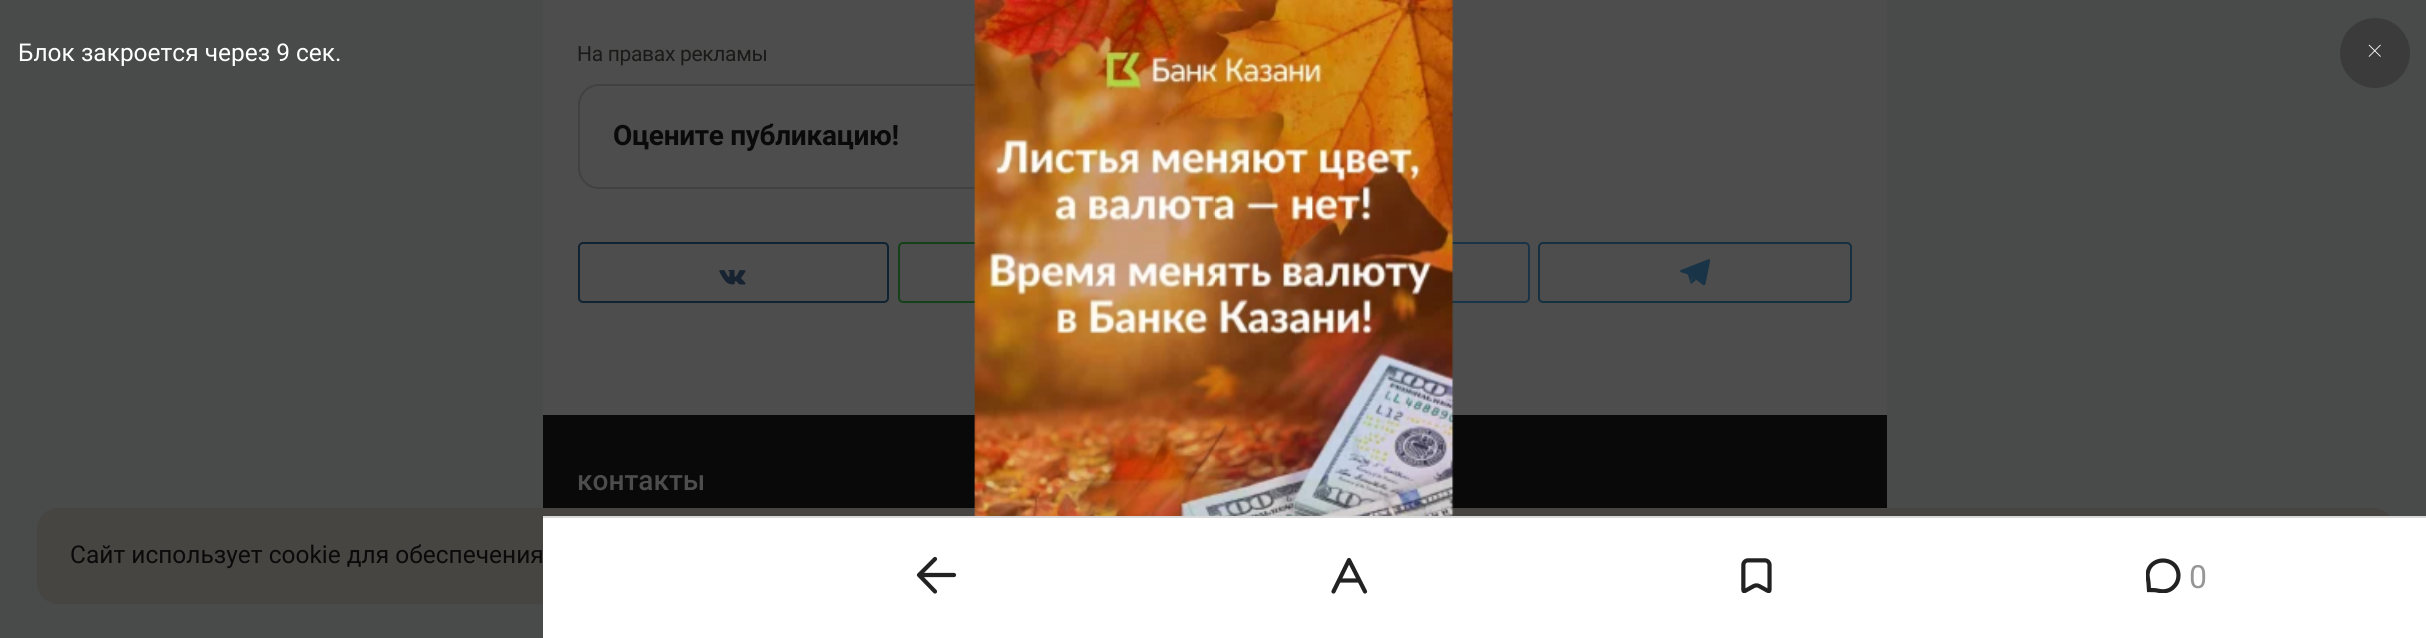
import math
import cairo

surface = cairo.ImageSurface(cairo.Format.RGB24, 2426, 638)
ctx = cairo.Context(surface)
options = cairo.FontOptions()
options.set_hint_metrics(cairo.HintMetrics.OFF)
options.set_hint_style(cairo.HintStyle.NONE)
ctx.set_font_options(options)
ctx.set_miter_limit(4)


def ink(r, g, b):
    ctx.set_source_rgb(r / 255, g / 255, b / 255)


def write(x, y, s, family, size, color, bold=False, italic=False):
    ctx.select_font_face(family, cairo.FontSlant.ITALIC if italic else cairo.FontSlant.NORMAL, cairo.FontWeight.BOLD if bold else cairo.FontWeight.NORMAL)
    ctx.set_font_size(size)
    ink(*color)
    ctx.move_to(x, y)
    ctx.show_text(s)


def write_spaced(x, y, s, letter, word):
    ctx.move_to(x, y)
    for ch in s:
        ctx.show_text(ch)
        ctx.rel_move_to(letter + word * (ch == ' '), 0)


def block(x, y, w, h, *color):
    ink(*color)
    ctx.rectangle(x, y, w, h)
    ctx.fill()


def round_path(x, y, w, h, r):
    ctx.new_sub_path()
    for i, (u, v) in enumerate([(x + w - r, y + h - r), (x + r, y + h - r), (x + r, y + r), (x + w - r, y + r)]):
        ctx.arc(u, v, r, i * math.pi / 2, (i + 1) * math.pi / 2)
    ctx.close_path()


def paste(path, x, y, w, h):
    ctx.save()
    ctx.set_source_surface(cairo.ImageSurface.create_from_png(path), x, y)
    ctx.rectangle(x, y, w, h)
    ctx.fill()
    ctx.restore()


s1 = dict(family="Roboto", size=24.5, color=(255, 255, 255))
s2 = dict(family="Roboto Medium", size=28, color=(77, 77, 77))
s3 = dict(family="Roboto", size=24.5, color=(10, 10, 10))
s4 = dict(family="Roboto", size=32, color=(150, 150, 150))

ink(73, 74, 74)
ctx.paint()
write(18, 61, "Блок закроется через 9 сек.", **s1)
ink(59, 59, 59)
ctx.new_path()
ctx.arc(2375, 53, 35, 0, 2 * math.pi)
ctx.fill()
paste("pic1.png", 2368, 44, 13, 13)
block(543, 0, 1344, 415, 77, 77, 77)
ctx.set_font_size(21)
ink(26, 26, 25)
write_spaced(577, 61, "На правах рекламы", -0.3, 0)
round_path(579, 85, 654, 103, 20)
ink(65, 65, 65)
ctx.stroke()
ctx.select_font_face("Roboto", cairo.FontSlant.NORMAL, cairo.FontWeight.BOLD)
ctx.set_font_size(28)
ink(10, 10, 10)
write_spaced(613, 145, "Оцените публикацию!", -0.3, 0)
round_path(579, 243, 309, 59, 4)
ink(16, 35, 50)
ctx.stroke()
paste("pic2.png", 719, 270, 27, 15)
round_path(899, 243, 309, 59, 4)
ink(20, 65, 25)
ctx.stroke()
round_path(1219, 243, 310, 59, 4)
ink(26, 52, 71)
ctx.stroke()
round_path(1539, 243, 312, 59, 4)
ink(20, 48, 65)
ctx.stroke()
paste("pic3.png", 1680, 259, 30, 26)
block(543, 415, 1344, 93, 9, 9, 9)
ink(71, 69, 66)
round_path(37, 508, 2357, 96, 21)
ctx.fill()
paste("pic4.png", 974, 0, 480, 516)
write(577, 490, "контакты", **s2)
write(70, 563, "Сайт использует cookie для обеспечения", **s3)
block(543, 518, 1883, 120, 255, 255, 255)
block(543, 516, 1883, 2, 217, 217, 217)
ctx.new_path()
ctx.move_to(935, 559)
ctx.line_to(919, 575)
ctx.line_to(935, 591.5)
ctx.move_to(954, 575)
ctx.line_to(919, 575)
ink(34, 34, 34)
ctx.set_line_width(4.2)
ctx.set_line_cap(cairo.LineCap.ROUND)
ctx.set_line_join(cairo.LineJoin.ROUND)
ctx.stroke()
ctx.new_path()
ctx.move_to(1333.5, 591.5)
ctx.line_to(1349, 560)
ctx.line_to(1365, 591.5)
ctx.move_to(1339.5, 580.5)
ctx.line_to(1359, 580.5)
ctx.stroke()
paste("pic5.png", 1741, 558, 31, 35)
ctx.save()
ctx.rectangle(2146, 558, 35, 35)
ctx.clip()
ctx.new_path()
ctx.move_to(2147.5, 575.5)
ctx.curve_to(2148, 555.5, 2178, 555.5, 2178.5, 575.5)
ctx.curve_to(2178.5, 579.5, 2177, 583.5, 2174, 586.5)
ctx.curve_to(2170.5, 590.5, 2165, 592, 2159.5, 591)
ctx.line_to(2159, 593)
ctx.line_to(2159.5, 591)
ctx.curve_to(2156, 590, 2152.5, 590, 2149, 590)
ctx.line_to(2148.5, 582.5)
ctx.close_path()
ctx.move_to(2147.5, 575.5)
ctx.line_to(2145.5, 575.5)
ctx.close_path()
ctx.set_line_cap(cairo.LineCap.BUTT)
ctx.set_line_join(cairo.LineJoin.MITER)
ctx.stroke()
ctx.restore()
write(2189, 588, "0", **s4)
surface.write_to_png("screenshot.png")
